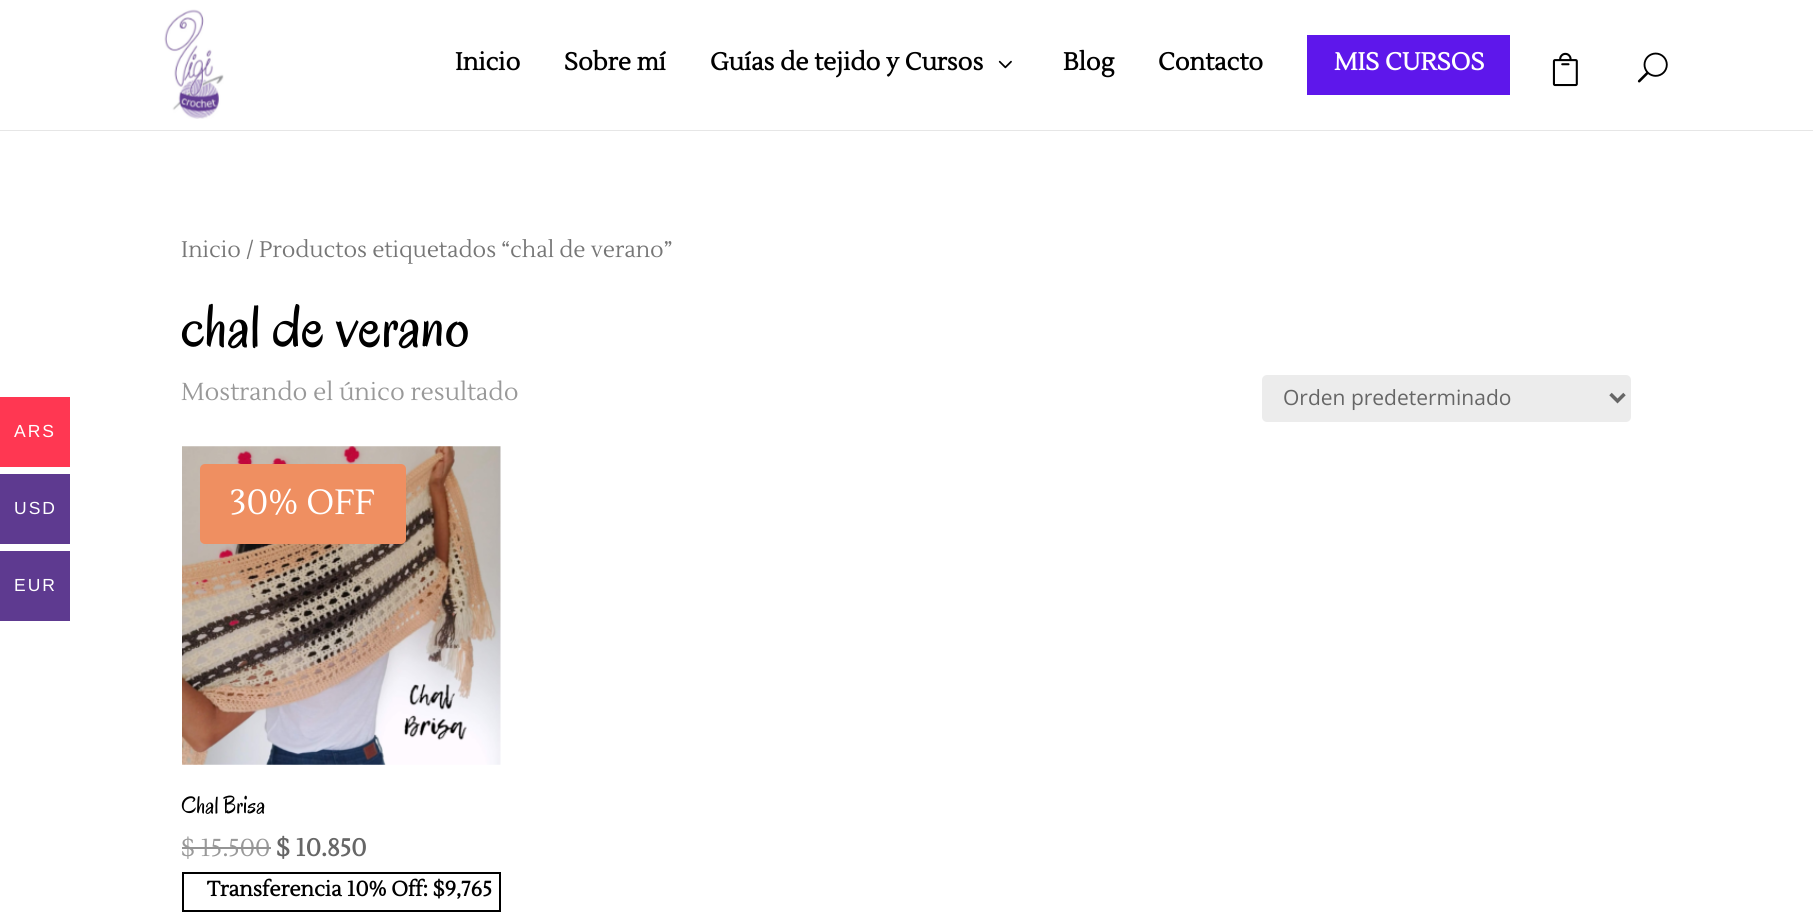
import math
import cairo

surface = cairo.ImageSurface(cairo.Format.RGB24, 1813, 921)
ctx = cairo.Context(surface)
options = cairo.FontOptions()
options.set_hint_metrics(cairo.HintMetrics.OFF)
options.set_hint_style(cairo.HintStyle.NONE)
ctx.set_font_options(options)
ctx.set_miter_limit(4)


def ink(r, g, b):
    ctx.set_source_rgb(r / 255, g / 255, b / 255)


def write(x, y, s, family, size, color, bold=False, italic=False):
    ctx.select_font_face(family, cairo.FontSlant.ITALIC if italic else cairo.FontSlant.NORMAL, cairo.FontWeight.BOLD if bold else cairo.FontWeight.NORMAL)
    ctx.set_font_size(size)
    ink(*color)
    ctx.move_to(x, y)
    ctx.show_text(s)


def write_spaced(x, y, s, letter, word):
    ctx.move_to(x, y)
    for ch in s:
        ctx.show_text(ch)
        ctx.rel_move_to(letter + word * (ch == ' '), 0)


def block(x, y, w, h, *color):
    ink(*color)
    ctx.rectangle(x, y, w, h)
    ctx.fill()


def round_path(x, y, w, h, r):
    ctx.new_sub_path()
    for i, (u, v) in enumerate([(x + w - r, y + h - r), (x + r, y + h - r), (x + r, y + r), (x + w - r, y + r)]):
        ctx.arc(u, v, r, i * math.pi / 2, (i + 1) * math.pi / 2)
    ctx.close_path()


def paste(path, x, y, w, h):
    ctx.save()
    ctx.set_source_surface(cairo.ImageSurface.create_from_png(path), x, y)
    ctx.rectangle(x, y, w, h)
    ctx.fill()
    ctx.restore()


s1 = dict(family="Lustria", size=24.5, color=(0, 0, 0), bold=True)
s2 = dict(family="Lustria", size=24.5, color=(255, 255, 255), bold=True)
s3 = dict(family="Lustria", size=22.5, color=(118, 118, 118))
s4 = dict(family="Oregano", size=61.25, color=(0, 0, 0))
s5 = dict(family="Lustria", size=24.5, color=(153, 153, 153))
s6 = dict(family="Open Sans", size=21, color=(102, 102, 102))
s7 = dict(family="Lustria", size=35, color=(255, 255, 255))
s8 = dict(family="Oregano", size=24.5, color=(0, 0, 0))
s9 = dict(family="Lustria", size=24.5, color=(102, 102, 102), bold=True)
s10 = dict(family="Lustria", size=21, color=(0, 0, 0), bold=True)

ink(255, 255, 255)
ctx.paint()
block(0, 397, 70, 70, 255, 55, 82)
ctx.select_font_face("Liberation Sans")
ctx.set_font_size(17.5)
ink(255, 255, 255)
write_spaced(14, 437, "ARS", 2, 0)
block(0, 474, 70, 70, 94, 58, 144)
ink(255, 255, 255)
write_spaced(14, 514, "USD", 2, 0)
block(0, 551, 70, 70, 94, 58, 144)
ink(255, 255, 255)
write_spaced(14, 591, "EUR", 2, 0)
block(0, 130, 1813, 1, 230, 230, 230)
paste("pic1.png", 164, 9, 60, 110)
write(455, 70, "Inicio", **s1)
write(564, 70, "Sobre mí", **s1)
write(710, 70, "Guías de tejido y Cursos", **s1)
paste("pic2.png", 998, 60, 14, 9)
write(1063, 70, "Blog", **s1)
write(1158, 70, "Contacto", **s1)
block(1307, 35, 203, 60, 94, 23, 235)
write(1334, 70, "MIS CURSOS", **s2)
paste("pic3.png", 1552, 52, 26, 35)
paste("pic4.png", 1637, 52, 31, 31)
write(181, 257, "Inicio / Productos etiquetados “chal de verano”", **s3)
write(181, 346, "chal de verano", **s4)
write(181, 400, "Mostrando el único resultado", **s5)
ink(236, 236, 236)
round_path(1262, 375, 369, 47, 5)
ctx.fill()
ctx.new_path()
ctx.move_to(1610.5, 394)
ctx.line_to(1617.5, 401)
ctx.line_to(1624.5, 394)
ink(102, 102, 102)
ctx.set_line_width(3.5)
ctx.stroke()
write(1283, 405, "Orden predeterminado", **s6)
paste("pic5.png", 182, 446, 319, 319)
ink(239, 143, 97)
round_path(200, 464, 206, 80, 5)
ctx.fill()
write(230, 514, "30% OFF", **s7)
write(181, 813, "Chal Brisa", **s8)
write(181, 856, "$ 15.500", **s5)
block(182, 847, 89, 2, 148, 148, 148)
write(276, 856, "$ 10.850", **s9)
ctx.rectangle(183, 873, 317, 38)
ink(0, 0, 0)
ctx.set_line_width(2)
ctx.stroke()
write(207, 896, "Transferencia 10% Off: $9,765", **s10)
surface.write_to_png("screenshot.png")
